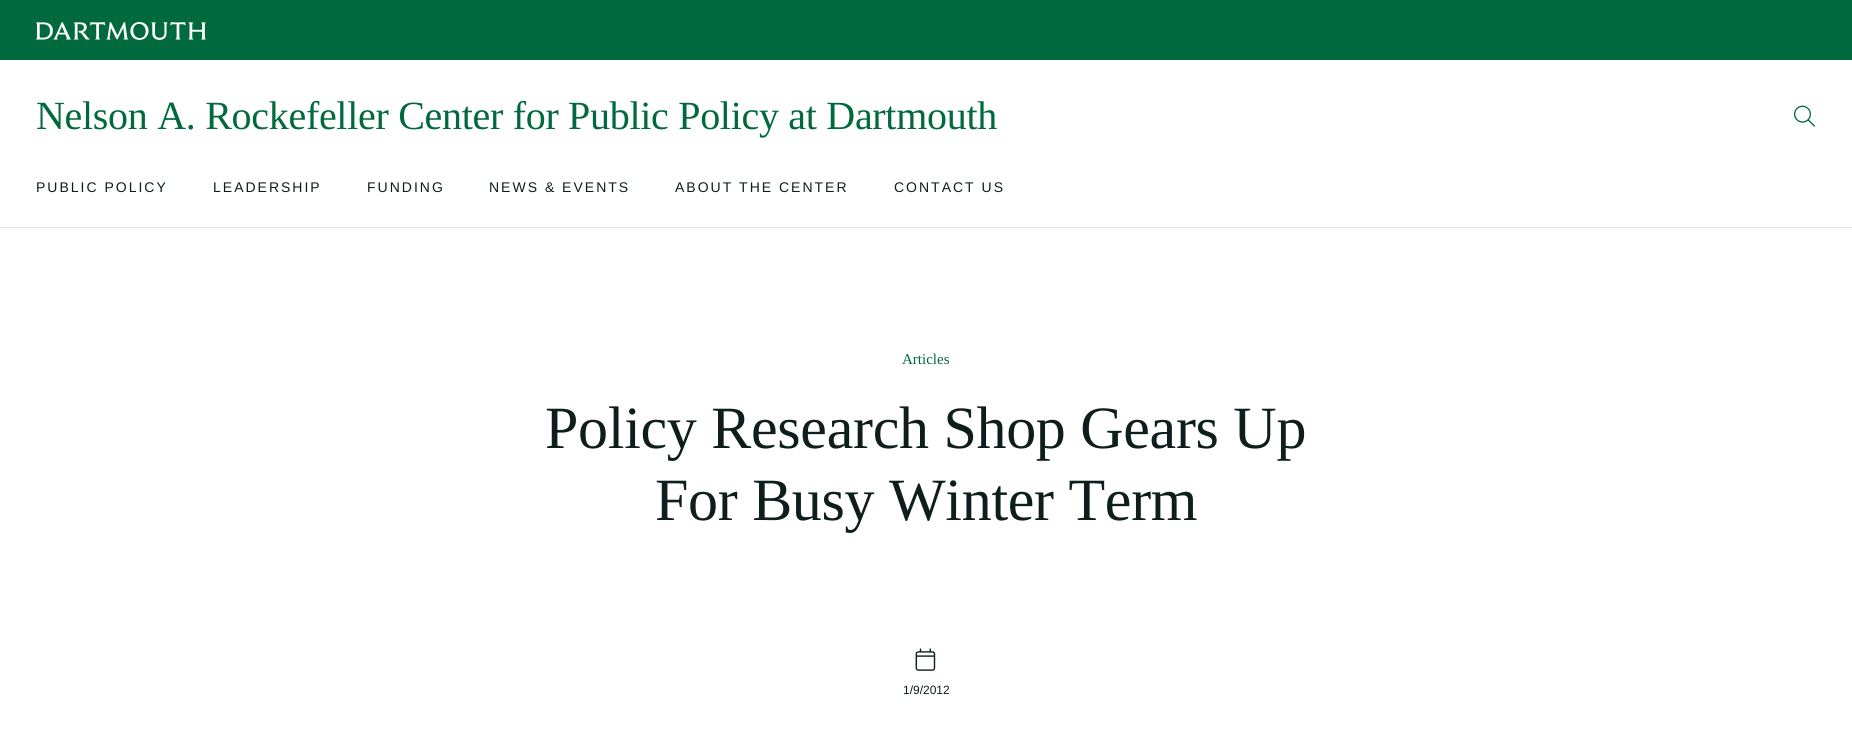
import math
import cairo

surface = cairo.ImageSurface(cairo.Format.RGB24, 1852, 744)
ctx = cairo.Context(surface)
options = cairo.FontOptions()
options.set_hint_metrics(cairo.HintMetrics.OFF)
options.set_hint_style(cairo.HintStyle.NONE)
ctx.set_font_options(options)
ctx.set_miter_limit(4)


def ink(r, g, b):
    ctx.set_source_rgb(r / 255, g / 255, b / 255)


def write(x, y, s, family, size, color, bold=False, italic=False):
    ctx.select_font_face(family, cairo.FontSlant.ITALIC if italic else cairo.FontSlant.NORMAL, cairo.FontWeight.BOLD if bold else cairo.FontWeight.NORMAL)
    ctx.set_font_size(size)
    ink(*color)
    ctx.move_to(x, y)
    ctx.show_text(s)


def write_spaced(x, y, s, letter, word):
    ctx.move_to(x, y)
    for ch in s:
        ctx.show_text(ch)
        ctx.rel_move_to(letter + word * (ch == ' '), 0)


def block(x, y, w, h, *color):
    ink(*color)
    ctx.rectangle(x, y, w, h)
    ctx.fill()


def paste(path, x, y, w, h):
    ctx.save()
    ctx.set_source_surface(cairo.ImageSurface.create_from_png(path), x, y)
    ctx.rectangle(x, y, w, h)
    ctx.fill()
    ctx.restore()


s1 = dict(family="Liberation Serif", size=15, color=(0, 105, 62))
s2 = dict(family="Liberation Sans", size=12, color=(13, 30, 28))

ink(255, 255, 255)
ctx.paint()
block(0, 227, 1852, 1, 226, 226, 226)
block(0, 0, 1852, 60, 0, 105, 62)
paste("pic1.png", 36, 22, 170, 18)
ctx.select_font_face("Liberation Serif")
ctx.set_font_size(40)
write_spaced(36, 129, "Nelson A. Rockefeller Center for Public Policy at Dartmouth", -0.3, 0)
paste("pic2.png", 1794, 105, 21, 22)
ctx.select_font_face("Liberation Sans")
ctx.set_font_size(14)
ink(13, 30, 28)
write_spaced(36, 192, "PUBLIC POLICY", 2, 0)
write_spaced(213, 192, "LEADERSHIP", 2, 0)
write_spaced(367, 192, "FUNDING", 2, 0)
write_spaced(489, 192, "NEWS & EVENTS", 2, 0)
write_spaced(675, 192, "ABOUT THE CENTER", 2, 0)
write_spaced(894, 192, "CONTACT US", 2, 0)
write(902, 364, "Articles", **s1)
ctx.set_font_size(60)
ink(13, 30, 28)
write_spaced(545, 448, "Policy Research Shop Gears Up", -0.3, 0)
write_spaced(655, 520, "For Busy Winter Term", -0.3, 0)
paste("pic3.png", 915, 648, 21, 23)
write(903, 694, "1/9/2012", **s2)
surface.write_to_png("screenshot.png")
